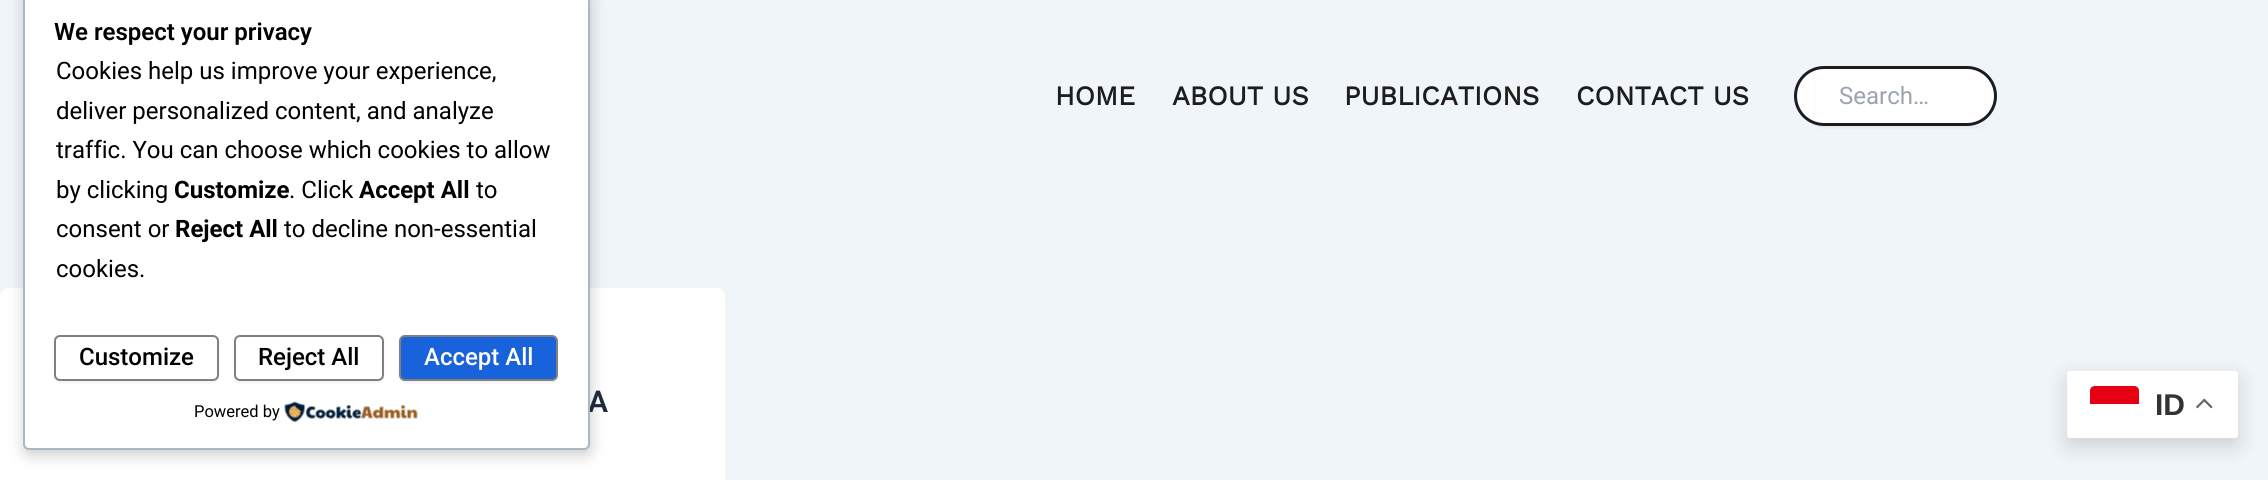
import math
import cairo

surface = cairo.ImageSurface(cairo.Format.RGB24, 2268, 480)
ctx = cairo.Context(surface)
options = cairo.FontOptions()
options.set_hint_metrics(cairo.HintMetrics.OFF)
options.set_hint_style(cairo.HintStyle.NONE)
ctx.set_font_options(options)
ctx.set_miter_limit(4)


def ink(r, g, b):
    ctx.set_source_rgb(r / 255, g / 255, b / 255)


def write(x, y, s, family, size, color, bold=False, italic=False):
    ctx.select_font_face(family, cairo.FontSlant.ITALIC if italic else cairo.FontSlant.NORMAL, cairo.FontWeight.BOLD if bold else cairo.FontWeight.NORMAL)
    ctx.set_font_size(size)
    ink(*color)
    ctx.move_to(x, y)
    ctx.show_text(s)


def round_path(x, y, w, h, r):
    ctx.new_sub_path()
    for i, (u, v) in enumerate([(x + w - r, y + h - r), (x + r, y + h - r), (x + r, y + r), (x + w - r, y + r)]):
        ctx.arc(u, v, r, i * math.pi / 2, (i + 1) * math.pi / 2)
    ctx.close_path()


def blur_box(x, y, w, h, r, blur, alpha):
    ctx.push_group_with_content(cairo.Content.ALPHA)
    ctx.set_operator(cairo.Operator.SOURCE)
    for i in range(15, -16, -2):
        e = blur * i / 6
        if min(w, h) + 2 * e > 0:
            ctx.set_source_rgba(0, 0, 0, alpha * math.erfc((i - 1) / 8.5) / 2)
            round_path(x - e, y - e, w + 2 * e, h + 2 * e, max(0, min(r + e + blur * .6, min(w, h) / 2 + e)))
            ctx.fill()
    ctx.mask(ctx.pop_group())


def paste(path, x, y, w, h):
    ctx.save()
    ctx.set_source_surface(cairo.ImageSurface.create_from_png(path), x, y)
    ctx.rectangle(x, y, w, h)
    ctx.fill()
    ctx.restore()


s1 = dict(family="Roboto SemiBold", size=30, color=(30, 41, 59))
s2 = dict(family="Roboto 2 SemiBold", size=24, color=(0, 0, 0))
s3 = dict(family="Roboto", size=24, color=(0, 0, 0))
s4 = dict(family="Roboto", size=24, color=(0, 0, 0), bold=True)
s5 = dict(family="Roboto Medium", size=24, color=(0, 0, 0))
s6 = dict(family="Roboto Medium", size=24, color=(255, 255, 255))
s7 = dict(family="Roboto", size=16.5, color=(0, 0, 0))
s8 = dict(family="Work Sans", size=27, color=(29, 29, 29), bold=True)
s9 = dict(family="Roboto", size=24, color=(156, 163, 175))
s10 = dict(family="Liberation Sans", size=30, color=(51, 51, 51), bold=True)

ink(240, 245, 250)
ctx.paint()
ink(255, 255, 255)
round_path(0, 288, 725, 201, 9)
ctx.fill()
ink(0, 0, 0)
blur_box(24, -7, 567, 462, 6, 7.5, 0.2)
write(588, 412, "A", **s1)
ink(255, 255, 255)
round_path(24, -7, 565, 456, 5)
ctx.fill_preserve()
ink(171, 184, 195)
ctx.stroke()
write(54, 40, "We respect your privacy", **s2)
write(56, 79, "Cookies help us improve your experience,", **s3)
write(56, 119, "deliver personalized content, and analyze", **s3)
write(56, 158, "traffic. You can choose which cookies to allow", **s3)
write(56, 198, "by clicking", **s3)
write(174, 198, "Customize", **s4)
write(289, 198, ". Click", **s3)
write(359, 198, "Accept All", **s4)
write(476, 198, "to", **s3)
write(56, 237, "consent or", **s3)
write(175, 237, "Reject All", **s4)
write(284, 237, "to decline non-essential", **s3)
write(56, 277, "cookies.", **s3)
ink(0, 0, 0)
blur_box(54, 336, 165, 47, 6, 1.5, 0.05)
ink(255, 255, 255)
round_path(55, 336, 163, 44, 5)
ctx.fill_preserve()
ink(128, 128, 128)
ctx.stroke()
write(79, 365, "Customize", **s5)
ink(0, 0, 0)
blur_box(234, 336, 150, 47, 6, 1.5, 0.05)
ink(255, 255, 255)
round_path(235, 336, 148, 44, 5)
ctx.fill_preserve()
ink(128, 128, 128)
ctx.stroke()
write(258, 365, "Reject All", **s5)
ink(0, 0, 0)
blur_box(399, 336, 159, 47, 6, 1.5, 0.05)
ink(24, 99, 220)
round_path(400, 336, 157, 44, 5)
ctx.fill_preserve()
ink(128, 128, 128)
ctx.stroke()
write(424, 365, "Accept All", **s6)
write(194, 417, "Powered by", **s7)
paste("pic1.png", 284, 401, 134, 22)
write(1055, 105, "HOME", **s8)
write(1172, 105, "ABOUT US", **s8)
write(1344, 105, "PUBLICATIONS", **s8)
write(1576, 105, "CONTACT US", **s8)
ink(255, 255, 255)
round_path(1795.5, 67.5, 200, 57, 28.5)
ctx.fill_preserve()
ink(29, 29, 31)
ctx.set_line_width(3)
ctx.stroke()
ctx.save()
ctx.set_fill_rule(cairo.FillRule.EVEN_ODD)
ctx.new_path()
ctx.move_to(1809, 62)
ctx.line_to(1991, 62)
ctx.line_to(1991, 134)
ctx.line_to(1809, 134)
ctx.close_path()
ctx.move_to(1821, 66)
ctx.line_to(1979, 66)
ctx.curve_to(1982.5, 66, 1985, 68.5, 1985, 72)
ctx.line_to(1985, 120)
ctx.curve_to(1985, 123.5, 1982.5, 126, 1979, 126)
ctx.line_to(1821, 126)
ctx.curve_to(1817.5, 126, 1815, 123.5, 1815, 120)
ctx.line_to(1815, 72)
ctx.curve_to(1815, 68.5, 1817.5, 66, 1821, 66)
ctx.close_path()
ctx.clip()
ink(0, 0, 0)
blur_box(1815, 68, 170, 60, 6, 1.5, 0.05)
ctx.restore()
write(1839, 104, "Search…", **s9)
ink(0, 0, 0)
blur_box(2067, 378, 171, 68, 3, 11, 0.15)
ink(255, 255, 255)
round_path(2067, 371, 171, 67, 3)
ctx.fill()
ink(231, 0, 17)
ctx.new_path()
ctx.move_to(2095, 386)
ctx.line_to(2134, 386)
ctx.curve_to(2137, 386, 2139, 388, 2139, 391)
ctx.line_to(2139, 405)
ctx.line_to(2090, 405)
ctx.line_to(2090, 391)
ctx.curve_to(2090, 388, 2092, 386, 2095, 386)
ctx.close_path()
ctx.fill()
ink(255, 255, 255)
ctx.new_path()
ctx.move_to(2090, 404)
ctx.line_to(2139, 404)
ctx.line_to(2139, 418)
ctx.curve_to(2139, 421, 2137, 423, 2134, 423)
ctx.line_to(2095, 423)
ctx.curve_to(2092, 423, 2090, 421, 2090, 418)
ctx.close_path()
ctx.fill()
write(2155, 415, "ID", **s10)
paste("pic2.png", 2196, 398, 17, 11)
surface.write_to_png("screenshot.png")
